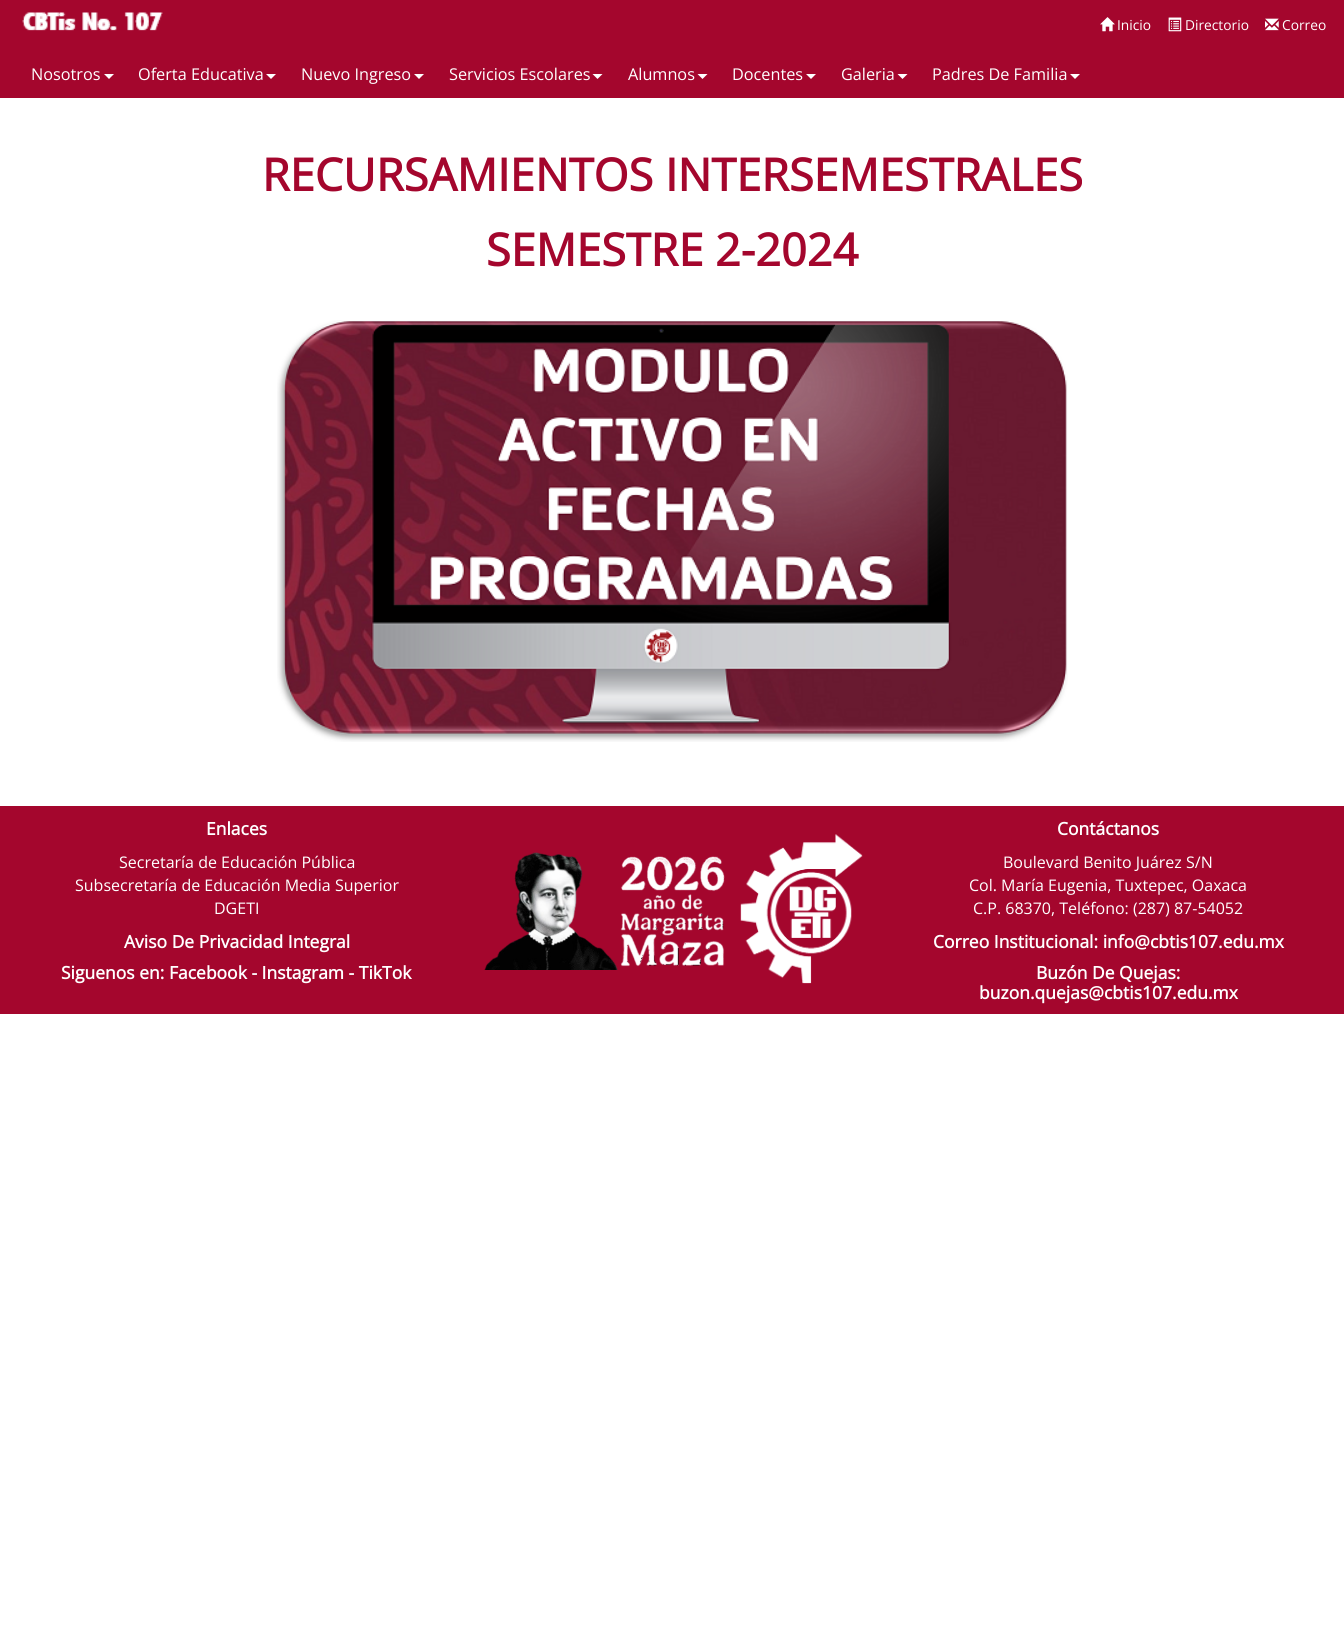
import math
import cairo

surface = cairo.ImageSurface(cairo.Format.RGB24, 1344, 1644)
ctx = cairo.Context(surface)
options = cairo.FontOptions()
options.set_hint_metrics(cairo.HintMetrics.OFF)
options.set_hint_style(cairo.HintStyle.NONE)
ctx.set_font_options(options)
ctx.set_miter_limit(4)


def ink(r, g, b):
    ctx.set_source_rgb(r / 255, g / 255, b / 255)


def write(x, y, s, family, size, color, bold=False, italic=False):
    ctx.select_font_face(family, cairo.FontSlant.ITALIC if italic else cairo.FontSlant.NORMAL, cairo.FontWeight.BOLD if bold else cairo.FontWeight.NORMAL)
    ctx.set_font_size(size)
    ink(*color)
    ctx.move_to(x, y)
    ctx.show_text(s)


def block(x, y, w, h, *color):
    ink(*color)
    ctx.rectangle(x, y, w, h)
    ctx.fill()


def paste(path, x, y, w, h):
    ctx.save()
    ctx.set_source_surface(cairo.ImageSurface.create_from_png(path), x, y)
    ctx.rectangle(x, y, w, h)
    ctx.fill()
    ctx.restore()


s1 = dict(family="Open Sans", size=13.75, color=(255, 255, 255))
s2 = dict(family="Open Sans", size=16.25, color=(255, 255, 255))
s3 = dict(family="Open Sans", size=45, color=(164, 6, 45), bold=True)
s4 = dict(family="Open Sans", size=17.5, color=(255, 255, 255), bold=True)
s5 = dict(family="Open Sans", size=16, color=(255, 255, 255))

ink(255, 255, 255)
ctx.paint()
block(0, 0, 1344, 98, 164, 6, 45)
paste("pic1.png", 22, 12, 141, 19)
paste("pic2.png", 1100, 17, 15, 15)
write(1117, 30, "Inicio", **s1)
paste("pic3.png", 1168, 17, 14, 15)
write(1185, 30, "Directorio", **s1)
paste("pic4.png", 1265, 18, 14, 13)
write(1282, 30, "Correo", **s1)
write(31, 80, "Nosotros", **s2)
ctx.new_path()
ctx.move_to(104, 74)
ctx.line_to(114, 74)
ctx.line_to(109, 79)
ctx.close_path()
ctx.fill()
write(138, 80, "Oferta Educativa", **s2)
ctx.new_path()
ctx.move_to(266, 74)
ctx.line_to(276, 74)
ctx.line_to(271, 79)
ctx.close_path()
ctx.fill()
write(301, 80, "Nuevo Ingreso", **s2)
ctx.new_path()
ctx.move_to(414, 74)
ctx.line_to(424, 74)
ctx.line_to(419, 79)
ctx.close_path()
ctx.fill()
write(449, 80, "Servicios Escolares", **s2)
ctx.new_path()
ctx.move_to(592.5, 74)
ctx.line_to(602.5, 74)
ctx.line_to(597.5, 79)
ctx.close_path()
ctx.fill()
write(628, 80, "Alumnos", **s2)
ctx.new_path()
ctx.move_to(697.5, 74)
ctx.line_to(707.5, 74)
ctx.line_to(702.5, 79)
ctx.close_path()
ctx.fill()
write(732, 80, "Docentes", **s2)
ctx.new_path()
ctx.move_to(806, 74)
ctx.line_to(816, 74)
ctx.line_to(811, 79)
ctx.close_path()
ctx.fill()
write(841, 80, "Galeria", **s2)
ctx.new_path()
ctx.move_to(897.5, 74)
ctx.line_to(907.5, 74)
ctx.line_to(902.5, 79)
ctx.close_path()
ctx.fill()
write(932, 80, "Padres De Familia", **s2)
ctx.new_path()
ctx.move_to(1070, 74)
ctx.line_to(1080, 74)
ctx.line_to(1075, 79)
ctx.close_path()
ctx.fill()
write(262, 191, "RECURSAMIENTOS INTERSEMESTRALES", **s3)
write(486, 266, "SEMESTRE 2-2024", **s3)
paste("pic5.png", 277, 320, 791, 422)
block(0, 806, 1344, 208, 164, 6, 45)
write(206, 835, "Enlaces", **s4)
write(119, 868, "Secretaría de Educación Pública", **s5)
write(75, 891, "Subsecretaría de Educación Media Superior", **s5)
write(214, 914, "DGETI", **s5)
write(124, 948, "Aviso De Privacidad Integral", **s4)
write(61, 979, "Siguenos en: Facebook - Instagram - TikTok", **s4)
paste("pic6.png", 484, 852, 241, 118)
paste("pic7.png", 740, 834, 123, 150)
write(1057, 835, "Contáctanos", **s4)
write(1003, 868, "Boulevard Benito Juárez S/N", **s5)
write(969, 891, "Col. María Eugenia, Tuxtepec, Oaxaca", **s5)
write(973, 914, "C.P. 68370, Teléfono: (287) 87-54052", **s5)
write(933, 948, "Correo Institucional: info@cbtis107.edu.mx", **s4)
write(1036, 979, "Buzón De Quejas:", **s4)
write(979, 999, "buzon.quejas@cbtis107.edu.mx", **s4)
surface.write_to_png("screenshot.png")
